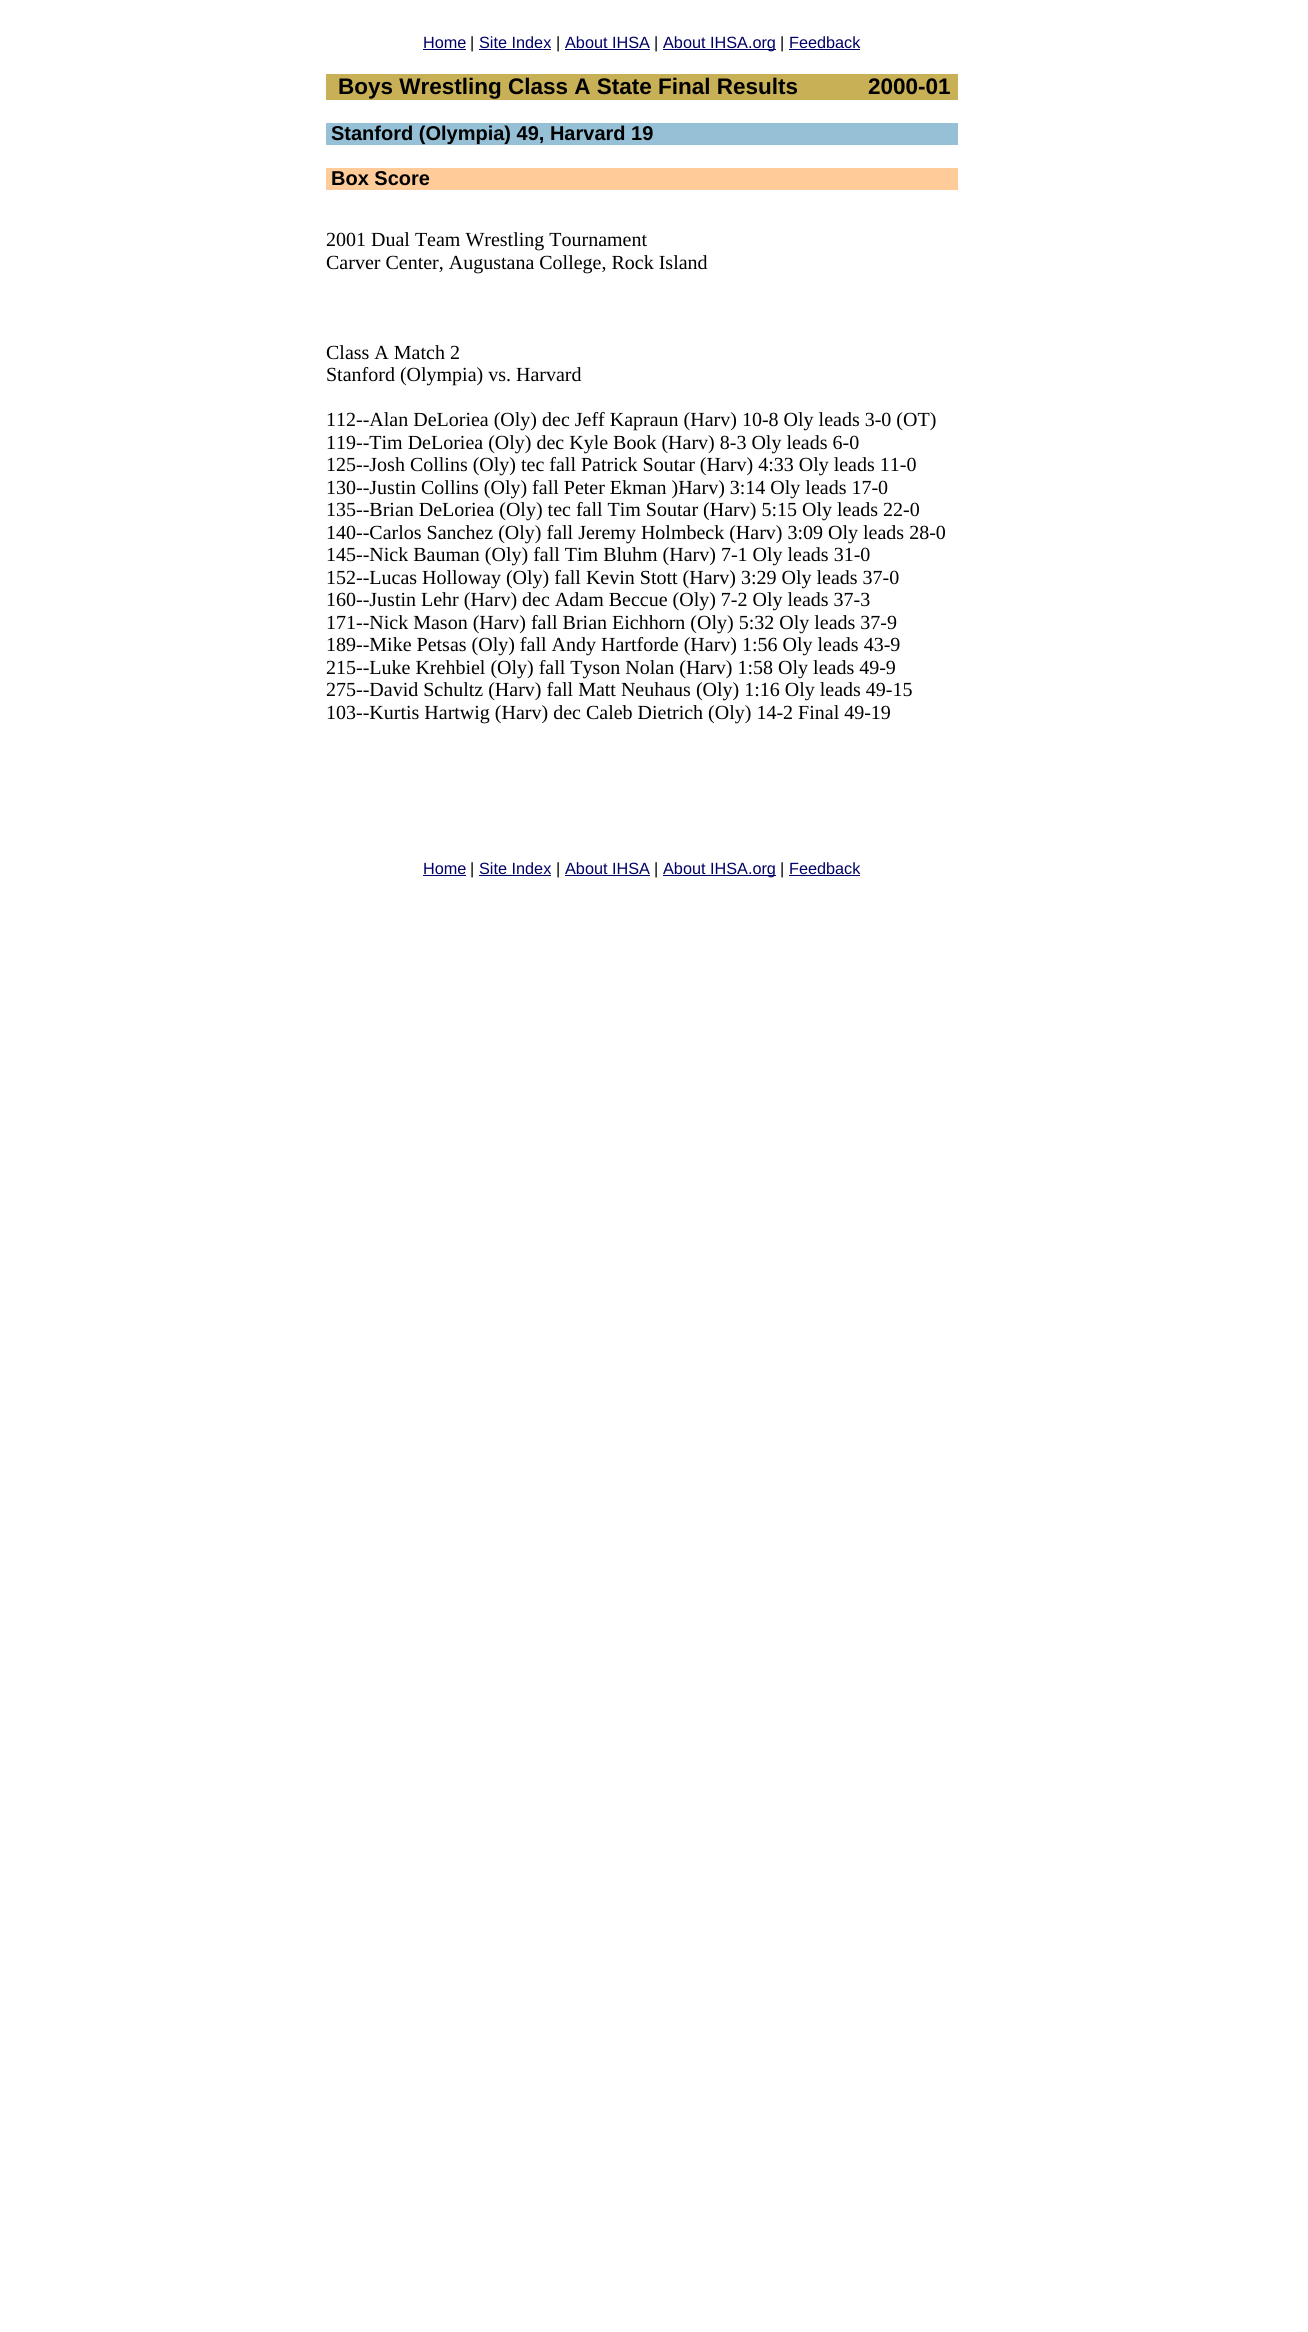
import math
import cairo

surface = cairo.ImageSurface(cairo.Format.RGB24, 1308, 2332)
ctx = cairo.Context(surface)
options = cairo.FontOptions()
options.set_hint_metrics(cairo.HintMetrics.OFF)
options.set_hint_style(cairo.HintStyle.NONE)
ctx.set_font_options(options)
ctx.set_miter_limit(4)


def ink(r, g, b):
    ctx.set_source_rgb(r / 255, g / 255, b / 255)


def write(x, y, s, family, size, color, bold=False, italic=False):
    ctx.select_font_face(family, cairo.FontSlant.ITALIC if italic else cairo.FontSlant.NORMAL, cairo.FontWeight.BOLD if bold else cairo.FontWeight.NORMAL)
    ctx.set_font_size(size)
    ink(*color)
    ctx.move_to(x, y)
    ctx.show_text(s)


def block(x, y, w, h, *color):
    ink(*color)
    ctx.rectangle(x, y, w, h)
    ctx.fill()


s1 = dict(family="Liberation Sans", size=16.25, color=(0, 0, 102))
s2 = dict(family="Liberation Sans", size=16.25, color=(0, 0, 0))
s3 = dict(family="Liberation Sans", size=22.5, color=(0, 0, 0), bold=True)
s4 = dict(family="Liberation Sans", size=20, color=(0, 0, 0), bold=True)
s5 = dict(family="Liberation Serif", size=20, color=(0, 0, 0))

ink(255, 255, 255)
ctx.paint()
write(423, 48, "Home", **s1)
block(423, 49, 43, 1, 0, 0, 102)
write(470, 48, "|", **s2)
write(479, 48, "Site Index", **s1)
block(479, 49, 72, 1, 0, 0, 102)
write(556, 48, "|", **s2)
write(565, 48, "About IHSA", **s1)
block(565, 49, 85, 1, 0, 0, 102)
write(654, 48, "|", **s2)
block(663, 49, 113, 1, 0, 0, 102)
write(663, 48, "About IHSA.org", **s1)
write(780, 48, "|", **s2)
write(789, 48, "Feedback", **s1)
block(789, 49, 71, 1, 0, 0, 102)
block(326, 74, 632, 26, 200, 176, 86)
write(338, 94, "Boys Wrestling Class A State Final Results", **s3)
write(868, 94, "2000-01", **s3)
block(326, 123, 632, 22, 149, 192, 214)
write(331, 140, "Stanford (Olympia) 49, Harvard 19", **s4)
block(326, 168, 632, 22, 255, 204, 153)
write(331, 185, "Box Score", **s4)
write(326, 246, "2001 Dual Team Wrestling Tournament", **s5)
write(326, 269, "Carver Center, Augustana College, Rock Island", **s5)
write(326, 359, "Class A Match 2", **s5)
write(326, 381, "Stanford (Olympia) vs. Harvard", **s5)
write(326, 426, "112--Alan DeLoriea (Oly) dec Jeff Kapraun (Harv) 10-8 Oly leads 3-0 (OT)", **s5)
write(326, 449, "119--Tim DeLoriea (Oly) dec Kyle Book (Harv) 8-3 Oly leads 6-0", **s5)
write(326, 471, "125--Josh Collins (Oly) tec fall Patrick Soutar (Harv) 4:33 Oly leads 11-0", **s5)
write(326, 494, "130--Justin Collins (Oly) fall Peter Ekman )Harv) 3:14 Oly leads 17-0", **s5)
write(326, 516, "135--Brian DeLoriea (Oly) tec fall Tim Soutar (Harv) 5:15 Oly leads 22-0", **s5)
write(326, 539, "140--Carlos Sanchez (Oly) fall Jeremy Holmbeck (Harv) 3:09 Oly leads 28-0", **s5)
write(326, 561, "145--Nick Bauman (Oly) fall Tim Bluhm (Harv) 7-1 Oly leads 31-0", **s5)
write(326, 584, "152--Lucas Holloway (Oly) fall Kevin Stott (Harv) 3:29 Oly leads 37-0", **s5)
write(326, 606, "160--Justin Lehr (Harv) dec Adam Beccue (Oly) 7-2 Oly leads 37-3", **s5)
write(326, 629, "171--Nick Mason (Harv) fall Brian Eichhorn (Oly) 5:32 Oly leads 37-9", **s5)
write(326, 651, "189--Mike Petsas (Oly) fall Andy Hartforde (Harv) 1:56 Oly leads 43-9", **s5)
write(326, 674, "215--Luke Krehbiel (Oly) fall Tyson Nolan (Harv) 1:58 Oly leads 49-9", **s5)
write(326, 696, "275--David Schultz (Harv) fall Matt Neuhaus (Oly) 1:16 Oly leads 49-15", **s5)
write(326, 719, "103--Kurtis Hartwig (Harv) dec Caleb Dietrich (Oly) 14-2 Final 49-19", **s5)
write(423, 874, "Home", **s1)
block(423, 875, 43, 1, 0, 0, 102)
write(470, 874, "|", **s2)
write(479, 874, "Site Index", **s1)
block(479, 875, 72, 1, 0, 0, 102)
write(556, 874, "|", **s2)
write(565, 874, "About IHSA", **s1)
block(565, 875, 85, 1, 0, 0, 102)
write(654, 874, "|", **s2)
block(663, 875, 113, 1, 0, 0, 102)
write(663, 874, "About IHSA.org", **s1)
write(780, 874, "|", **s2)
write(789, 874, "Feedback", **s1)
block(789, 875, 71, 1, 0, 0, 102)
surface.write_to_png("screenshot.png")
